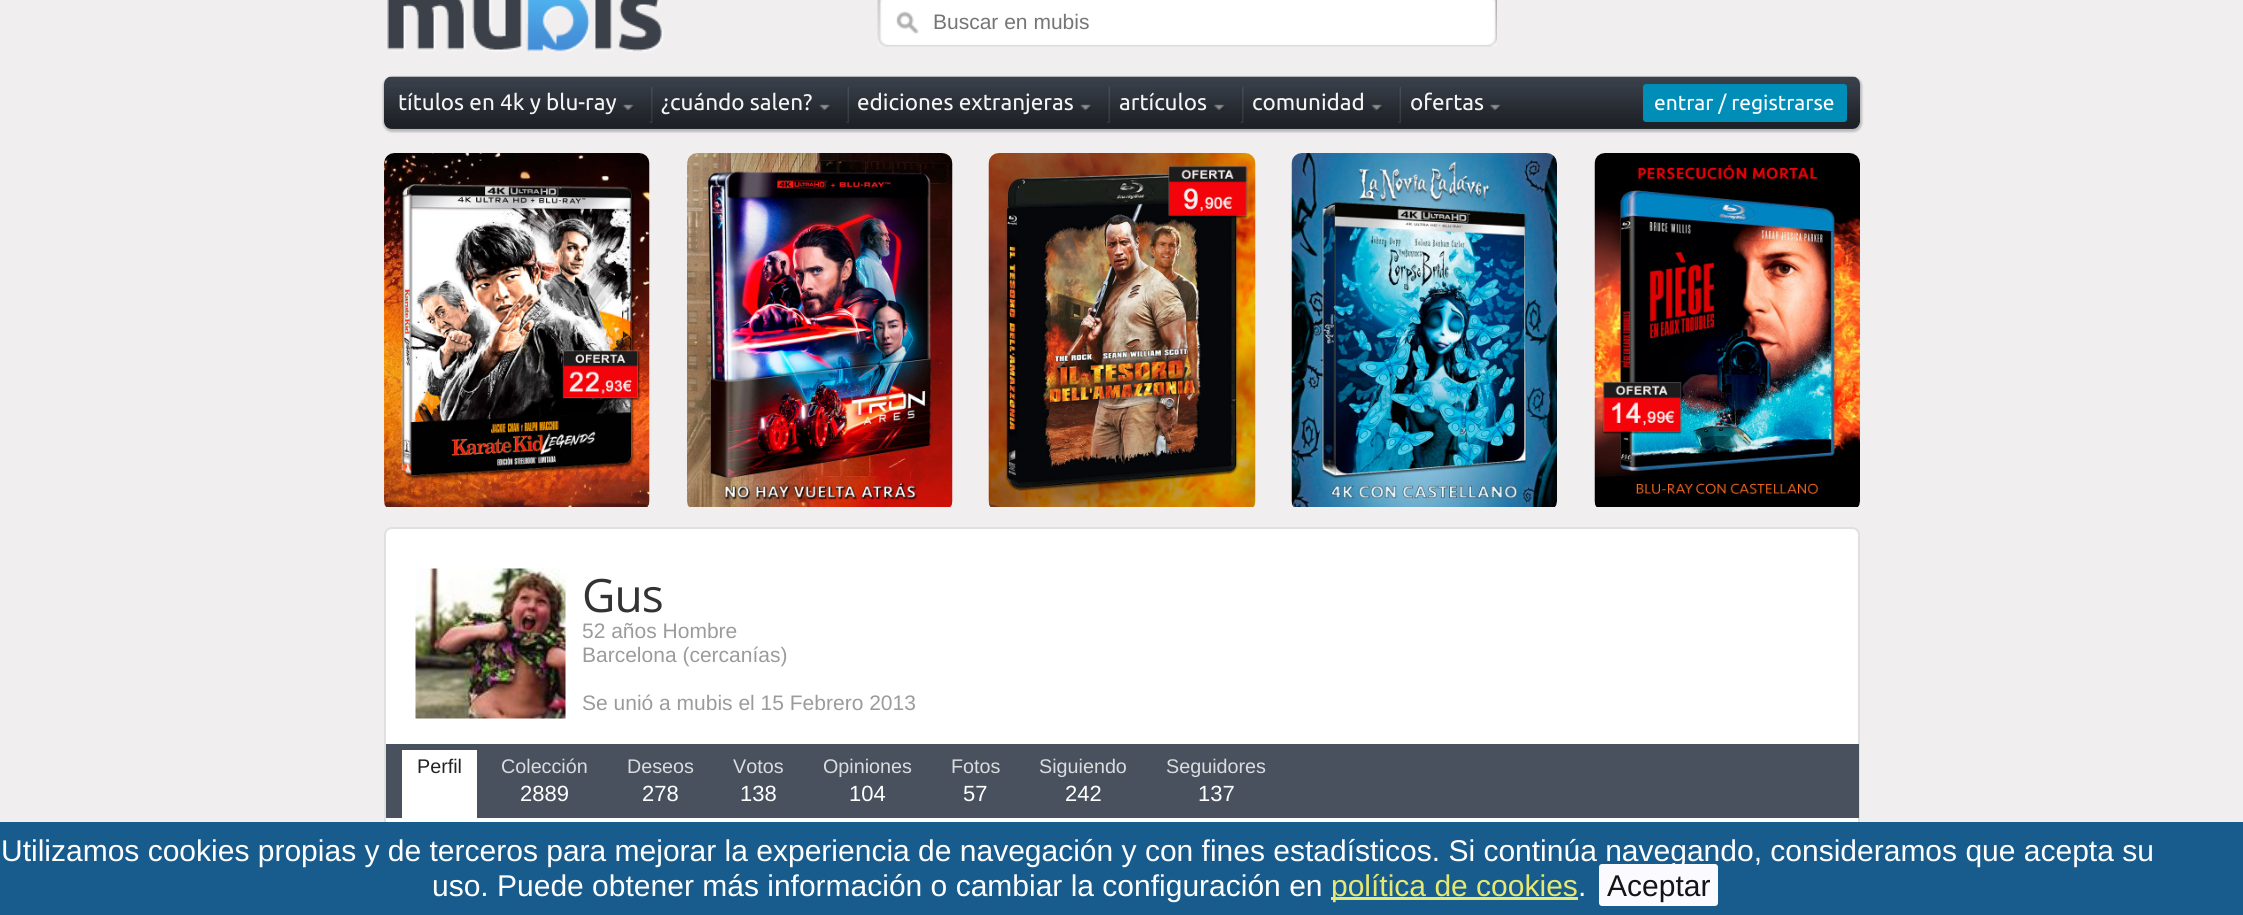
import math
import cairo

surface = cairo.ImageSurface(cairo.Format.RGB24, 2243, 915)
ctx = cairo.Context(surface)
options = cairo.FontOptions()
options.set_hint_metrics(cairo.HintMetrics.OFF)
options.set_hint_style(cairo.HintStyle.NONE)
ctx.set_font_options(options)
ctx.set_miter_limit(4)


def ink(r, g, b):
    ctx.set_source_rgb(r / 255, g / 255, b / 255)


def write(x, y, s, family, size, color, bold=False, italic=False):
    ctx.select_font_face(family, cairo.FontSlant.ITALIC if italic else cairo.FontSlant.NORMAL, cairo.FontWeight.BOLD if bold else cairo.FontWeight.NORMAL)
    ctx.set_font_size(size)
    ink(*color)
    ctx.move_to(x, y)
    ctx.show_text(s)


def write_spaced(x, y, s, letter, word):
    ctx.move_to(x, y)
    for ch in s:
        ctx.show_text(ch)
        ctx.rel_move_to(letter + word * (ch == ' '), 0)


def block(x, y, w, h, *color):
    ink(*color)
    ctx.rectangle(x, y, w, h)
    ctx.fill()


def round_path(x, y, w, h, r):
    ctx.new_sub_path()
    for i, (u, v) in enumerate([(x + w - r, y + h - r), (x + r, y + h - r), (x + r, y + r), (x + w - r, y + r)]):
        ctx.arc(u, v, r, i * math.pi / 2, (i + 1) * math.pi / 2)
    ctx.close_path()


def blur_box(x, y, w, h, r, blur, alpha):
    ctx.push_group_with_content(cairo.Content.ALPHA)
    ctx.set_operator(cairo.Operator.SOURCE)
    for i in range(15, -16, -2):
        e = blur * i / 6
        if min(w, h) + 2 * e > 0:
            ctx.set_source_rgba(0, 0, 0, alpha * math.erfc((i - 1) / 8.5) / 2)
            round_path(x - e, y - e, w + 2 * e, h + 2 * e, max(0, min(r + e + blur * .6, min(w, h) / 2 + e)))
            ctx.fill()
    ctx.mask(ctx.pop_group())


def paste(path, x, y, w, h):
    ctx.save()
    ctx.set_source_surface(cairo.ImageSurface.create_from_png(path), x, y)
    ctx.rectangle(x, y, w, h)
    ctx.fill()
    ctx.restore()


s1 = dict(family="Liberation Sans", size=21, color=(117, 117, 117))
s2 = dict(family="Ubuntu", size=22.5, color=(245, 245, 245))
s3 = dict(family="Ubuntu", size=21, color=(255, 255, 255))
s4 = dict(family="Liberation Sans", size=21, color=(156, 155, 155))
s5 = dict(family="Liberation Sans", size=19.75, color=(34, 34, 34))
s6 = dict(family="Liberation Sans", size=19.75, color=(218, 221, 222))
s7 = dict(family="Liberation Sans", size=22, color=(255, 255, 255))
s8 = dict(family="Liberation Sans", size=30, color=(255, 255, 255))
s9 = dict(family="Liberation Sans", size=30, color=(229, 232, 114))
s10 = dict(family="Liberation Sans", size=30, color=(21, 19, 19))

ink(240, 238, 238)
ctx.paint()
paste("pic1.png", 387, 0, 277, 53)
paste("pic2.png", 877, 0, 620, 47)
write(933, 29, "Buscar en mubis", **s1)
ink(68, 68, 68)
blur_box(383, 77, 1479, 55, 9, 1, 0.3)
paste("pic3.png", 384, 76, 1476, 53)
paste("pic4.png", 622, 104, 12, 7)
write(398, 110, "títulos en 4k y blu-ray", **s2)
paste("pic5.png", 649, 87, 4, 36)
paste("pic6.png", 819, 104, 12, 7)
write(661, 110, "¿cuándo salen?", **s2)
paste("pic7.png", 846, 87, 3, 36)
paste("pic6.png", 1080, 104, 12, 7)
write(857, 110, "ediciones extranjeras", **s2)
paste("pic7.png", 1107, 87, 3, 36)
paste("pic8.png", 1213, 104, 12, 7)
write(1119, 110, "artículos", **s2)
paste("pic9.png", 1240, 87, 4, 36)
paste("pic10.png", 1371, 104, 12, 7)
write(1252, 110, "comunidad", **s2)
paste("pic11.png", 1398, 87, 3, 36)
paste("pic8.png", 1489, 104, 12, 7)
write(1410, 110, "ofertas", **s2)
ink(0, 142, 185)
round_path(1643, 84, 204, 38, 3)
ctx.fill()
write(1654, 110, "entrar / registrarse", **s3)
paste("pic12.png", 384, 153, 266, 354)
paste("pic13.png", 687, 153, 266, 354)
paste("pic14.png", 988, 153, 268, 354)
paste("pic15.png", 1291, 153, 266, 354)
paste("pic16.png", 1594, 153, 266, 354)
ctx.new_path()
ctx.move_to(392, 528)
ctx.line_to(1852, 528)
ctx.curve_to(1856, 528, 1859, 531, 1859, 535)
ctx.line_to(1859, 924)
ctx.line_to(385, 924)
ctx.line_to(385, 535)
ctx.curve_to(385, 531, 388, 528, 392, 528)
ctx.close_path()
ctx.fill_preserve()
ink(224, 224, 224)
ctx.stroke()
paste("pic17.png", 415, 568, 151, 151)
ctx.select_font_face("Open Sans")
ctx.set_font_size(46)
ink(51, 51, 51)
write_spaced(582, 612, "Gus", -1, 0)
write(582, 638, "52 años Hombre", **s4)
write(582, 662, "Barcelona (cercanías)", **s4)
write(582, 710, "Se unió a mubis el 15 Febrero 2013", **s4)
block(386, 744, 1473, 74, 74, 81, 94)
block(402, 750, 75, 68, 255, 255, 255)
write(417, 773, "Perfil", **s5)
write(501, 773, "Colección", **s6)
write(520, 801, "2889", **s7)
write(627, 773, "Deseos", **s6)
write(642, 801, "278", **s7)
write(733, 773, "Votos", **s6)
write(740, 801, "138", **s7)
write(823, 773, "Opiniones", **s6)
write(849, 801, "104", **s7)
write(951, 773, "Fotos", **s6)
write(963, 801, "57", **s7)
write(1039, 773, "Siguiendo", **s6)
write(1065, 801, "242", **s7)
write(1166, 773, "Seguidores", **s6)
write(1198, 801, "137", **s7)
block(0, 822, 2243, 93, 24, 92, 142)
write(1, 861, "Utilizamos cookies propias y de terceros para mejorar la experiencia de navegación y con fines estadísticos. Si continúa navegando, consideramos que acepta su", **s8)
write(432, 896, "uso. Puede obtener más información o cambiar la configuración en", **s8)
block(1331, 897, 247, 3, 229, 232, 114)
write(1331, 896, "política de cookies", **s9)
write(1578, 896, ".", **s8)
ink(250, 250, 255)
round_path(1599, 864, 119, 42, 3)
ctx.fill()
write(1607, 896, "Aceptar", **s10)
surface.write_to_png("screenshot.png")
